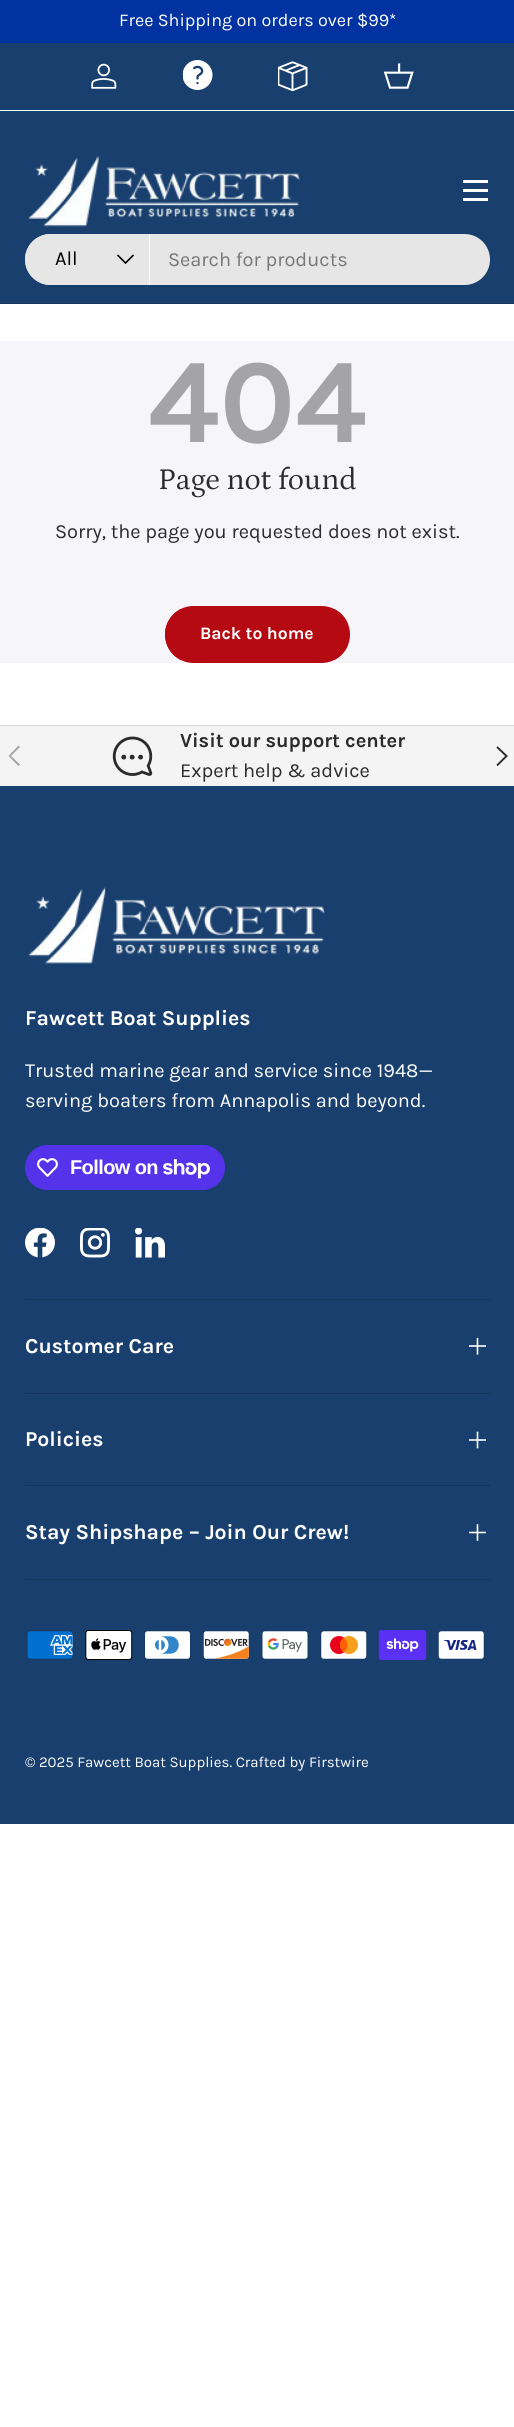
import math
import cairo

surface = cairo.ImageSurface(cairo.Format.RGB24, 514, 2427)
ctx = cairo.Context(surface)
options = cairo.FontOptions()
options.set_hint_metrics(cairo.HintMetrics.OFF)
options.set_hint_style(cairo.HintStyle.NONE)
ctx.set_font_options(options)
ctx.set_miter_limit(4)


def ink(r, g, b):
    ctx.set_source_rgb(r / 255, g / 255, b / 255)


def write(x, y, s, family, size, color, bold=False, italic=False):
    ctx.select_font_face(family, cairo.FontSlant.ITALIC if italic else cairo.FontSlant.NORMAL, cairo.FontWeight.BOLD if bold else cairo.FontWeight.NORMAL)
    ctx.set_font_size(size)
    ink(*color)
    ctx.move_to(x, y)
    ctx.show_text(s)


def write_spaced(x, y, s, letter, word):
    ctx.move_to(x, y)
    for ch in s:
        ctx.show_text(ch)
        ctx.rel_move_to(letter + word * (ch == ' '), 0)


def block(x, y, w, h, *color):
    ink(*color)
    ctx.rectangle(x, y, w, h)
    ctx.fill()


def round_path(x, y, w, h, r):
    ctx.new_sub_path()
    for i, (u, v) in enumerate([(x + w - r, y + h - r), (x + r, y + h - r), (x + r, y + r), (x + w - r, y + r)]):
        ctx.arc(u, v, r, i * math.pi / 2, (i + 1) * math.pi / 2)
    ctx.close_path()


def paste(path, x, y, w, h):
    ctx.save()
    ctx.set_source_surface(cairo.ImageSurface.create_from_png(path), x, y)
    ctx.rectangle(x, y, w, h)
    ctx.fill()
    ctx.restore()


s1 = dict(family="Karla", size=18, color=(255, 255, 255))
s2 = dict(family="Karla", size=20, color=(0, 0, 0))
s3 = dict(family="Karla", size=20, color=(119, 119, 119))
s4 = dict(family="Karla", size=120, color=(164, 164, 167), bold=True)
s5 = dict(family="Petrona", size=30.5, color=(42, 43, 42))
s6 = dict(family="Karla", size=20, color=(42, 43, 42))
s7 = dict(family="Karla", size=17.5, color=(255, 255, 255), bold=True)
s8 = dict(family="Karla", size=20, color=(42, 43, 42), bold=True)
s9 = dict(family="Karla", size=21.25, color=(255, 255, 255), bold=True)
s10 = dict(family="Karla", size=20, color=(255, 255, 255))
s11 = dict(family="Karla", size=15, color=(255, 255, 255))

ink(255, 255, 255)
ctx.paint()
block(0, 0, 514, 43, 0, 50, 161)
write(119, 26, "Free Shipping on orders over $99*", **s1)
block(0, 43, 514, 67, 25, 63, 110)
paste("pic1.png", 91, 63, 26, 26)
paste("pic2.png", 183, 60, 30, 30)
paste("pic3.png", 278, 61, 30, 30)
paste("pic4.png", 384, 63, 30, 26)
block(0, 111, 514, 192, 25, 63, 110)
block(0, 303, 514, 1, 22, 55, 95)
paste("pic5.png", 28, 156, 272, 71)
block(463, 180, 25, 3, 255, 255, 255)
block(463, 198, 25, 3, 255, 255, 255)
block(463, 189, 25, 3, 255, 255, 255)
ink(230, 230, 230)
round_path(25, 234, 465, 51, 25.5)
ctx.fill()
ctx.new_path()
ctx.move_to(50.5, 234)
ctx.line_to(150, 234)
ctx.line_to(150, 285)
ctx.line_to(50.5, 285)
ctx.curve_to(36.5, 285, 25, 273.5, 25, 259.5)
ctx.curve_to(25, 245.5, 36.5, 234, 50.5, 234)
ctx.close_path()
ctx.fill()
block(149, 234, 1, 51, 255, 255, 255)
write(55, 265, "All", **s2)
ctx.new_path()
ctx.move_to(133.5, 255)
ctx.line_to(125.5, 263)
ctx.line_to(117.5, 255)
ctx.set_line_width(1.6)
ctx.stroke()
write(168, 266, "Search for products", **s3)
block(0, 341, 514, 322, 246, 245, 250)
write(148, 442, "404", **s4)
write(158, 489, "Page not found", **s5)
write(55, 538, "Sorry, the page you requested does not exist.", **s6)
ctx.save()
round_path(165, 606, 185, 57, 28.5)
ctx.clip()
gradient = cairo.LinearGradient(-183, 569, 338, 699)
gradient.add_color_stop_rgba(0.6, 0.804, 0.196, 0.227, 1)
gradient.add_color_stop_rgba(0.6, 0.714, 0.039, 0.071, 1)
gradient.add_color_stop_rgba(1, 0.714, 0.039, 0.071, 1)
ctx.set_source(gradient)
ctx.rectangle(165, 609, 183, 51)
ctx.fill()
ctx.restore()
round_path(166.5, 607.5, 182, 54, 27)
ink(182, 10, 18)
ctx.set_line_width(3)
ctx.stroke()
write(200, 639, "Back to home", **s7)
block(0, 726, 514, 60, 244, 244, 244)
block(0, 725, 514, 1, 214, 214, 214)
paste("pic6.png", 112, 736, 41, 40)
write(180, 747, "Visit our support center", **s8)
write(180, 777, "Expert help & advice", **s6)
ink(163, 164, 163)
ctx.new_path()
ctx.move_to(8.5, 756)
ctx.line_to(18.5, 745.5)
ctx.line_to(20, 747)
ctx.line_to(11, 756)
ctx.line_to(20, 764.5)
ctx.line_to(18.5, 766)
ctx.close_path()
ctx.fill()
ctx.new_path()
ctx.move_to(497, 747)
ctx.line_to(506.5, 756)
ctx.line_to(497, 765.5)
ink(42, 43, 42)
ctx.set_line_width(1.9)
ctx.stroke()
block(0, 786, 514, 1038, 25, 63, 110)
paste("pic7.png", 28, 887, 297, 77)
write(25, 1025, "Fawcett Boat Supplies", **s9)
write(25, 1077, "Trusted marine gear and service since 1948—", **s10)
write(25, 1107, "serving boaters from Annapolis and beyond.", **s10)
ink(84, 51, 235)
round_path(25, 1145, 200, 45, 22.5)
ctx.fill()
paste("pic8.png", 37, 1158, 21, 19)
ctx.select_font_face("Liberation Sans", cairo.FontSlant.NORMAL, cairo.FontWeight.BOLD)
ink(255, 255, 255)
write_spaced(70, 1174, "Follow on", -0.6, 0)
paste("pic9.png", 163, 1159, 47, 20)
paste("pic10.png", 25, 1228, 30, 30)
paste("pic11.png", 80, 1228, 30, 30)
paste("pic12.png", 135, 1228, 30, 30)
block(25, 1299, 465, 1, 21, 52, 89)
block(25, 1393, 465, 1, 21, 52, 89)
write(25, 1353, "Customer Care", **s9)
paste("pic13.png", 469, 1337, 17, 18)
block(25, 1485, 465, 1, 21, 52, 89)
write(25, 1446, "Policies", **s9)
paste("pic14.png", 469, 1431, 17, 18)
block(25, 1579, 465, 1, 21, 52, 89)
write(25, 1539, "Stay Shipshape – Join Our Crew!", **s9)
paste("pic15.png", 469, 1524, 17, 17)
paste("pic16.png", 26, 1630, 48, 30)
paste("pic17.png", 85, 1630, 48, 30)
paste("pic18.png", 144, 1630, 47, 30)
paste("pic19.png", 203, 1630, 47, 30)
paste("pic20.png", 261, 1630, 48, 30)
paste("pic21.png", 320, 1630, 47, 30)
paste("pic22.png", 378, 1630, 49, 30)
paste("pic23.png", 438, 1630, 47, 30)
write(25, 1767, "© 2025 Fawcett Boat Supplies. Crafted by Firstwire", **s11)
surface.write_to_png("screenshot.png")
